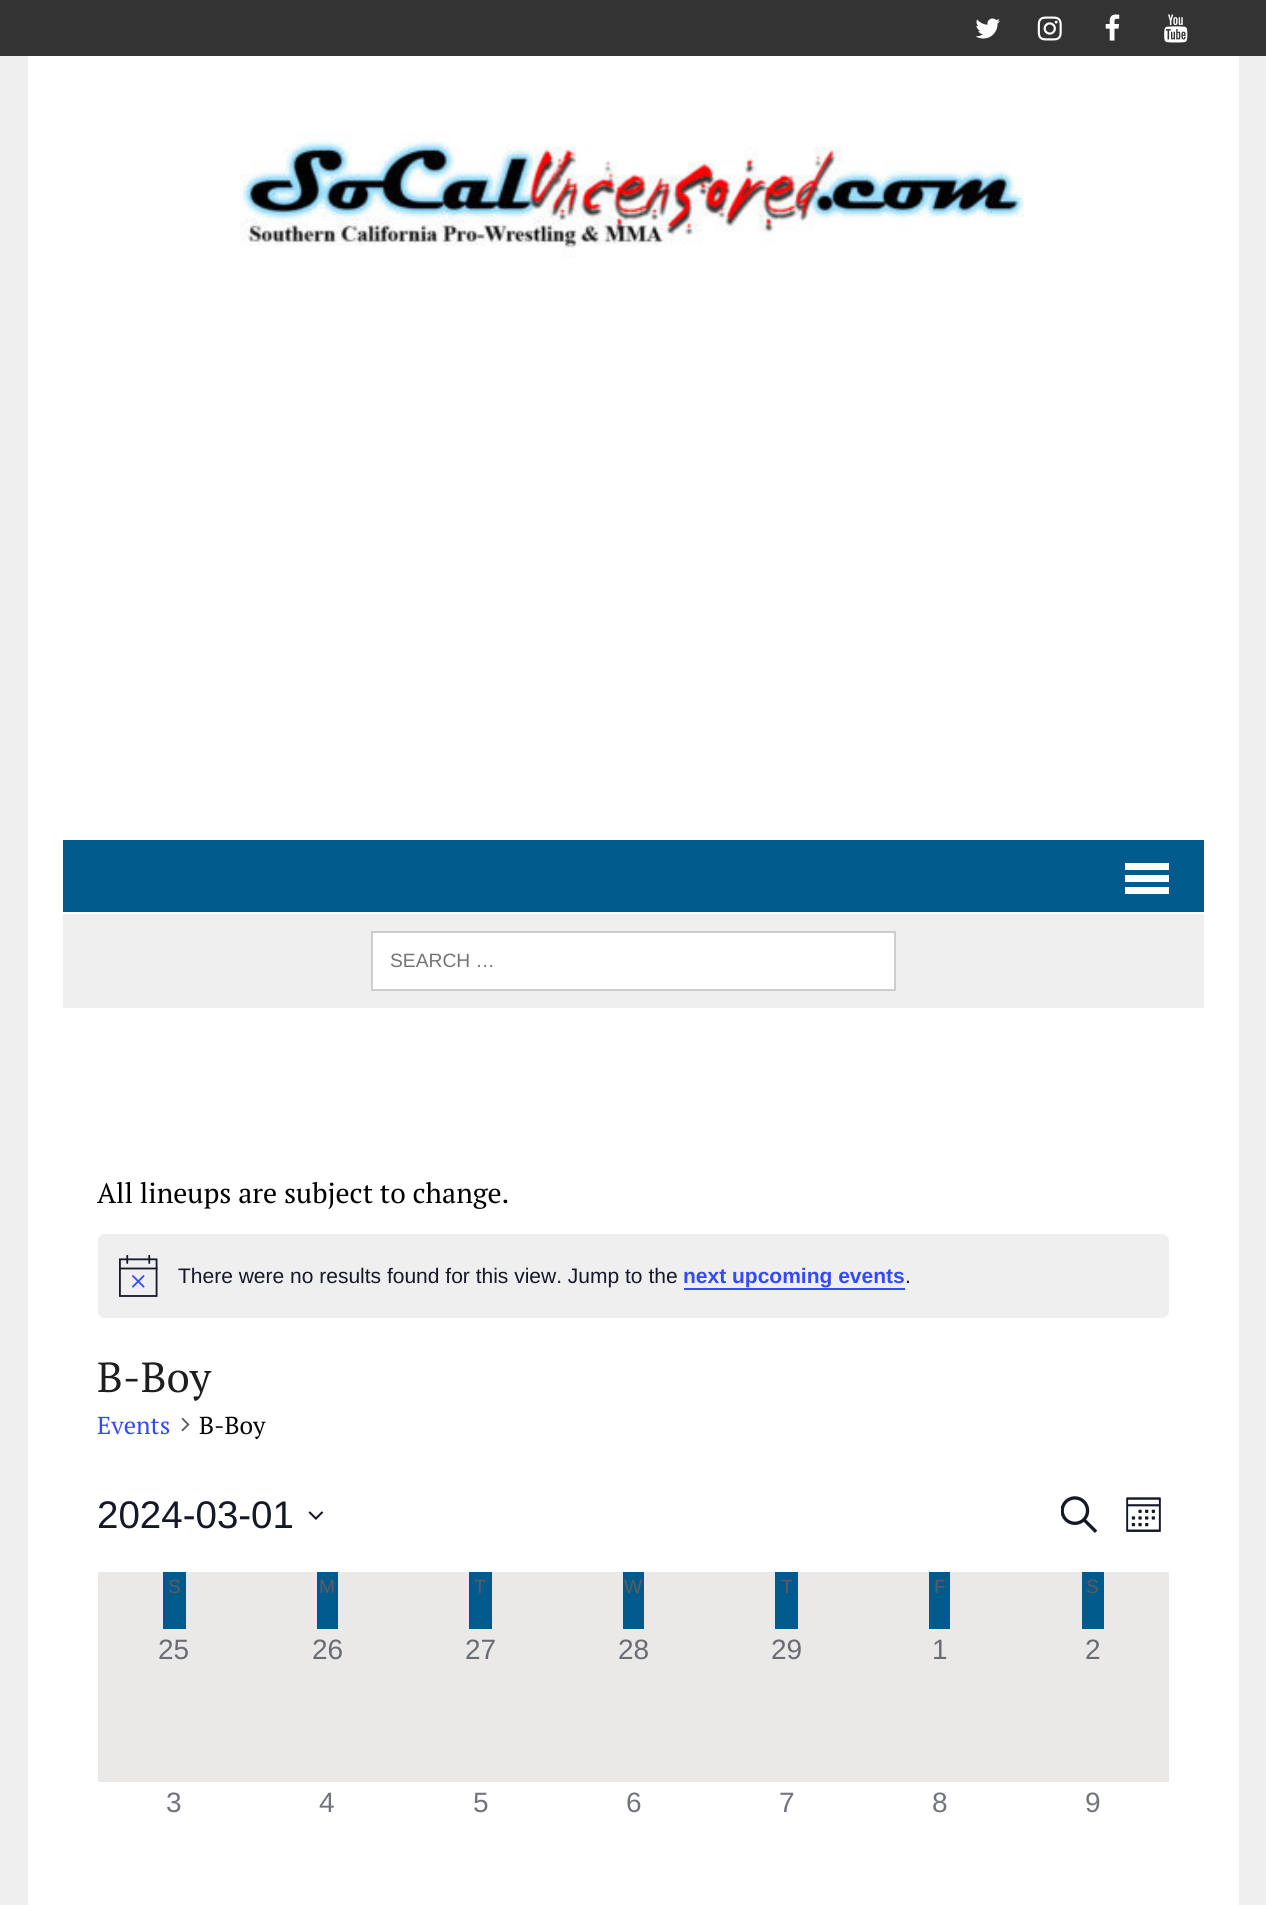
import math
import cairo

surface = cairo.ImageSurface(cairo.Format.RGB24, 1266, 1905)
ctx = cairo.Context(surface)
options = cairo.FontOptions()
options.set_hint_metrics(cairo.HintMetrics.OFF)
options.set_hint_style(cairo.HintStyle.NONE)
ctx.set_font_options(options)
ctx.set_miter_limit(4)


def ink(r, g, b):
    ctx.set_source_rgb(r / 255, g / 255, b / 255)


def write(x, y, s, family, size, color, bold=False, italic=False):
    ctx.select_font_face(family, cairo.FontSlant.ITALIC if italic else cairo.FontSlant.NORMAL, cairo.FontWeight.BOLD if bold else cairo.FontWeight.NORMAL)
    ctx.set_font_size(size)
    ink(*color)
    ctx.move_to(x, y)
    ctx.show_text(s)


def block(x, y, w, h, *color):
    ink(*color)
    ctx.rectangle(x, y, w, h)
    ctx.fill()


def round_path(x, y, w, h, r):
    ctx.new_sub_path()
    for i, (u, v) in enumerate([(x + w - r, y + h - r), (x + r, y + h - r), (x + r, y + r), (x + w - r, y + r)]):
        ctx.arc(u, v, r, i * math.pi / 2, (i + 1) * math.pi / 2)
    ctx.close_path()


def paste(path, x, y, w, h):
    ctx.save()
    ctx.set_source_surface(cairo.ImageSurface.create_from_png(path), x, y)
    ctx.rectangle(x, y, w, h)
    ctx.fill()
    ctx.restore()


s1 = dict(family="Liberation Sans", size=19.25, color=(117, 117, 117))
s2 = dict(family="PT Serif", size=28, color=(0, 0, 0))
s3 = dict(family="Liberation Sans", size=21, color=(20, 24, 39))
s4 = dict(family="Liberation Sans", size=21, color=(51, 74, 255), bold=True)
s5 = dict(family="PT Serif", size=42, color=(31, 30, 30))
s6 = dict(family="PT Serif", size=24.5, color=(51, 74, 255))
s7 = dict(family="PT Serif", size=24.5, color=(0, 0, 0))
s8 = dict(family="Liberation Sans", size=38.5, color=(20, 24, 39))
s9 = dict(family="Liberation Sans", size=19.25, color=(93, 93, 93))
s10 = dict(family="Liberation Sans", size=28, color=(106, 108, 116))
s11 = dict(family="Liberation Sans", size=28, color=(114, 116, 125))

ink(239, 239, 239)
ctx.paint()
block(0, 0, 1266, 56, 51, 51, 51)
paste("pic1.png", 975, 18, 25, 21)
paste("pic2.png", 1037, 16, 25, 25)
paste("pic3.png", 1105, 14, 15, 27)
paste("pic4.png", 1164, 14, 24, 29)
block(28, 56, 1211, 1849, 255, 255, 255)
paste("pic5.png", 240, 133, 785, 126)
block(63, 840, 1141, 72, 0, 90, 140)
block(1125, 863, 44, 7, 255, 255, 255)
block(1125, 875, 44, 7, 255, 255, 255)
block(1125, 887, 44, 7, 255, 255, 255)
block(63, 914, 1141, 94, 239, 239, 239)
ink(255, 255, 255)
ctx.rectangle(372, 932, 523, 58)
ctx.fill_preserve()
ink(205, 205, 205)
ctx.stroke()
write(390, 967, "SEARCH …", **s1)
write(97, 1203, "All lineups are subject to change.", **s2)
ink(239, 239, 240)
round_path(98, 1234, 1071, 84, 7)
ctx.fill()
paste("pic6.png", 119, 1255, 39, 42)
write(178, 1283, "There were no results found for this view. Jump to the", **s3)
write(683, 1283, "next upcoming events", **s4)
block(684, 1288, 221, 2, 51, 74, 255)
write(905, 1283, ".", **s3)
write(97, 1392, "B-Boy", **s5)
write(97, 1434, "Events", **s6)
paste("pic7.png", 181, 1418, 9, 14)
write(199, 1434, "B-Boy", **s7)
write(97, 1528, "2024-03-01", **s8)
paste("pic8.png", 308, 1511, 16, 9)
paste("pic9.png", 1061, 1496, 36, 37)
paste("pic10.png", 1126, 1497, 35, 35)
block(98, 1572, 1071, 210, 234, 233, 232)
block(163, 1572, 23, 57, 0, 90, 140)
write(168, 1593, "S", **s9)
block(317, 1572, 21, 57, 0, 90, 140)
write(319, 1593, "M", **s9)
block(469, 1572, 23, 57, 0, 90, 140)
write(474, 1593, "T", **s9)
block(623, 1572, 21, 57, 0, 90, 140)
write(624, 1593, "W", **s9)
block(775, 1572, 23, 57, 0, 90, 140)
write(781, 1593, "T", **s9)
block(929, 1572, 21, 57, 0, 90, 140)
write(934, 1593, "F", **s9)
block(1082, 1572, 22, 57, 0, 90, 140)
write(1086, 1593, "S", **s9)
write(158, 1659, "25", **s10)
write(312, 1659, "26", **s10)
write(465, 1659, "27", **s10)
write(618, 1659, "28", **s10)
write(771, 1659, "29", **s10)
write(932, 1659, "1", **s10)
write(1085, 1659, "2", **s10)
write(166, 1812, "3", **s11)
write(319, 1812, "4", **s11)
write(473, 1812, "5", **s11)
write(626, 1812, "6", **s11)
write(779, 1812, "7", **s11)
write(932, 1812, "8", **s11)
write(1085, 1812, "9", **s11)
surface.write_to_png("screenshot.png")
